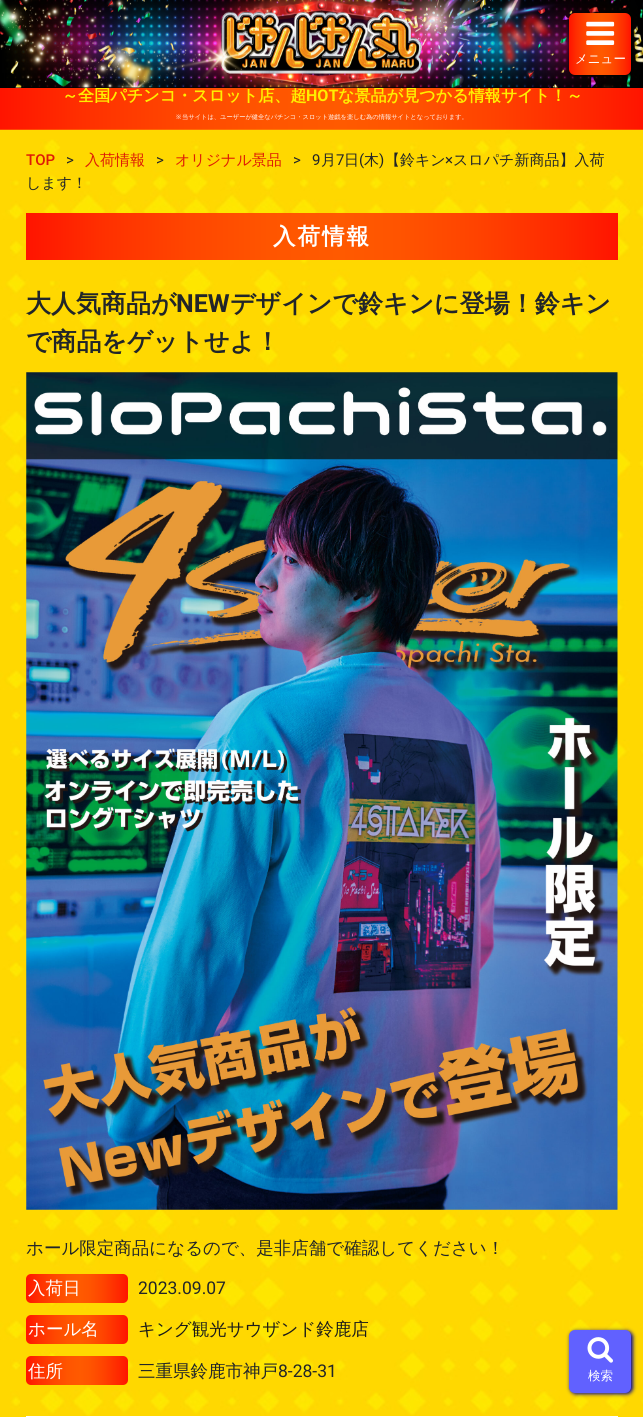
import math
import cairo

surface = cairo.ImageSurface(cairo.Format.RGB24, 643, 1417)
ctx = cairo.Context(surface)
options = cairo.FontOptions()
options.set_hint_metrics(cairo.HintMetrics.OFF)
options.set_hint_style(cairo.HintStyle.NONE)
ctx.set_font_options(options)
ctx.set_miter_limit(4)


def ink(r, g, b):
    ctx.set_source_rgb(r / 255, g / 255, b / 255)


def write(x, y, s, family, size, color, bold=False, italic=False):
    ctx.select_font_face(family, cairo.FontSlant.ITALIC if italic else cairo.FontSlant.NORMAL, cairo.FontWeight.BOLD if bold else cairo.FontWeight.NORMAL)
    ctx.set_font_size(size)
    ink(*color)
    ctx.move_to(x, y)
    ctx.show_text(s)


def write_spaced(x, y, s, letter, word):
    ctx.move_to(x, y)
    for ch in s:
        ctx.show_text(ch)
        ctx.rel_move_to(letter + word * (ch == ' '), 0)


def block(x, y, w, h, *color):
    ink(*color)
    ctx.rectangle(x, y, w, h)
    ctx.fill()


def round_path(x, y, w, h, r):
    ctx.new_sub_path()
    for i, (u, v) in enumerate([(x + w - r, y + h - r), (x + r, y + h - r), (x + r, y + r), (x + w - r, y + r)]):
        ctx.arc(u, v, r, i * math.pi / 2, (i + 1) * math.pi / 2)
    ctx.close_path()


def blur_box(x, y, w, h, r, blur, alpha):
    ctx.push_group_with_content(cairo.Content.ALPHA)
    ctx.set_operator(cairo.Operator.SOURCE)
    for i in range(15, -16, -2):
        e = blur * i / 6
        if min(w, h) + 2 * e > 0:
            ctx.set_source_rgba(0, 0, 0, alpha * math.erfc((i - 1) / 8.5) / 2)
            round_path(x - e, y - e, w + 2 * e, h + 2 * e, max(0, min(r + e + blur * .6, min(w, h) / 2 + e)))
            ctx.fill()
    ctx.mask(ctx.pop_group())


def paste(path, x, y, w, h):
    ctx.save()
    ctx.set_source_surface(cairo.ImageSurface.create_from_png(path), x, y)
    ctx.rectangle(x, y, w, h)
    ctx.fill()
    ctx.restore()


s1 = dict(family="WenQuanYi Zen Hei", size=16.1, color=(255, 238, 0), bold=True)
s2 = dict(family="WenQuanYi Zen Hei Medium", size=12.5, color=(255, 255, 255))
s3 = dict(family="Roboto", size=16.1, color=(255, 238, 0), bold=True)
s4 = dict(family="Noto Sans", size=6.25, color=(255, 255, 255))
s5 = dict(family="WenQuanYi Zen Hei Medium", size=6.25, color=(255, 255, 255))
s6 = dict(family="Roboto Medium", size=15, color=(222, 26, 6))
s7 = dict(family="Roboto", size=15, color=(33, 37, 41))
s8 = dict(family="WenQuanYi Zen Hei Medium", size=15, color=(222, 26, 6))
s9 = dict(family="WenQuanYi Zen Hei Medium", size=15, color=(33, 37, 41))
s10 = dict(family="WenQuanYi Zen Hei", size=25, color=(33, 37, 41), bold=True)
s11 = dict(family="Roboto", size=25, color=(33, 37, 41), bold=True)
s12 = dict(family="WenQuanYi Zen Hei Medium", size=17.5, color=(33, 37, 41))
s13 = dict(family="WenQuanYi Zen Hei Medium", size=17.5, color=(255, 255, 255))
s14 = dict(family="Roboto", size=17.5, color=(33, 37, 41))
s15 = dict(family="WenQuanYi Zen Hei Medium", size=17.5, color=(26, 26, 26))

ink(255, 255, 255)
ctx.paint()
gradient = cairo.LinearGradient(0, 58, 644, 58)
gradient.add_color_stop_rgba(0, 1, 0.078, 0, 1)
gradient.add_color_stop_rgba(0.13, 1, 0.188, 0, 1)
gradient.add_color_stop_rgba(0.28, 1, 0.278, 0, 1)
gradient.add_color_stop_rgba(0.41, 1, 0.333, 0, 1)
gradient.add_color_stop_rgba(0.53, 1, 0.353, 0, 1)
gradient.add_color_stop_rgba(0.63, 1, 0.329, 0, 1)
gradient.add_color_stop_rgba(0.76, 1, 0.263, 0, 1)
gradient.add_color_stop_rgba(0.91, 1, 0.157, 0, 1)
gradient.add_color_stop_rgba(1, 1, 0.078, 0, 1)
ctx.set_source(gradient)
ctx.rectangle(0, 88, 643, 42)
ctx.fill()
write(62, 101, "～全国パチンコ・スロット店、超", **s1)
write(338, 101, "な景品が見つかる情報サイト！～", **s1)
block(0, 87, 643, 1, 0, 0, 0)
paste("pic1.png", 0, 0, 643, 88)
ink(0, 0, 0)
blur_box(570, 14, 63, 62, 6, 2, 1)
gradient = cairo.LinearGradient(569, 44, 631, 44)
gradient.add_color_stop_rgba(0, 1, 0.078, 0, 1)
gradient.add_color_stop_rgba(0.13, 1, 0.188, 0, 1)
gradient.add_color_stop_rgba(0.28, 1, 0.278, 0, 1)
gradient.add_color_stop_rgba(0.41, 1, 0.333, 0, 1)
gradient.add_color_stop_rgba(0.53, 1, 0.353, 0, 1)
gradient.add_color_stop_rgba(0.63, 1, 0.329, 0, 1)
gradient.add_color_stop_rgba(0.76, 1, 0.263, 0, 1)
gradient.add_color_stop_rgba(0.91, 1, 0.157, 0, 1)
gradient.add_color_stop_rgba(1, 1, 0.078, 0, 1)
ctx.set_source(gradient)
round_path(569, 13, 62, 62, 6)
ctx.fill()
paste("pic2.png", 586, 21, 29, 24)
write(575, 63, "メニュー", **s2)
write(306, 101, "HOT", **s3)
write(176, 119, "※", **s4)
write(182, 119, "当サイトは、ユーザーが健全なパチンコ・スロット遊戯を楽しむ為の情報サイトとなっております。", **s5)
paste("pic3.png", 0, 129, 643, 1288)
write(26, 165, "TOP", **s6)
write(66, 165, ">", **s7)
write(85, 165, "入荷情報", **s8)
write(156, 165, ">", **s7)
write(175, 165, "オリジナル景品", **s8)
write(293, 165, ">", **s7)
write(312, 165, "9", **s7)
write(321, 165, "月", **s9)
write(336, 165, "7", **s7)
write(344, 165, "日", **s9)
write(359, 165, "(", **s7)
write(364, 165, "木", **s9)
write(379, 165, ")", **s7)
write(385, 165, "【鈴キン", **s9)
write(445, 165, "×", **s7)
write(453, 165, "スロパチ新商品】入荷", **s9)
write(26, 188, "します！", **s9)
gradient = cairo.LinearGradient(26, 236, 618, 236)
gradient.add_color_stop_rgba(0, 1, 0.078, 0, 1)
gradient.add_color_stop_rgba(0.13, 1, 0.188, 0, 1)
gradient.add_color_stop_rgba(0.28, 1, 0.278, 0, 1)
gradient.add_color_stop_rgba(0.41, 1, 0.333, 0, 1)
gradient.add_color_stop_rgba(0.53, 1, 0.353, 0, 1)
gradient.add_color_stop_rgba(0.63, 1, 0.329, 0, 1)
gradient.add_color_stop_rgba(0.76, 1, 0.263, 0, 1)
gradient.add_color_stop_rgba(0.91, 1, 0.157, 0, 1)
gradient.add_color_stop_rgba(1, 1, 0.078, 0, 1)
ctx.set_source(gradient)
ctx.rectangle(26, 213, 592, 47)
ctx.fill()
ctx.select_font_face("WenQuanYi Zen Hei", cairo.FontSlant.NORMAL, cairo.FontWeight.BOLD)
ctx.set_font_size(22.5)
ink(255, 255, 255)
write_spaced(273, 244, "入荷情報", 2, 0)
write(26, 312, "大人気商品が", **s10)
write(176, 312, "NEW", **s11)
write(230, 312, "デザインで鈴キンに登場！鈴キン", **s10)
write(26, 350, "で商品をゲットせよ！", **s10)
paste("pic4.png", 26, 372, 592, 838)
write(26, 1254, "ホール限定商品になるので、是非店舗で確認してください！", **s12)
gradient = cairo.LinearGradient(26, 1288, 128, 1288)
gradient.add_color_stop_rgba(0, 1, 0.078, 0, 1)
gradient.add_color_stop_rgba(0.13, 1, 0.188, 0, 1)
gradient.add_color_stop_rgba(0.28, 1, 0.278, 0, 1)
gradient.add_color_stop_rgba(0.41, 1, 0.333, 0, 1)
gradient.add_color_stop_rgba(0.53, 1, 0.353, 0, 1)
gradient.add_color_stop_rgba(0.63, 1, 0.329, 0, 1)
gradient.add_color_stop_rgba(0.76, 1, 0.263, 0, 1)
gradient.add_color_stop_rgba(0.91, 1, 0.157, 0, 1)
gradient.add_color_stop_rgba(1, 1, 0.078, 0, 1)
ctx.set_source(gradient)
round_path(26, 1274, 102, 29, 5)
ctx.fill()
write(28, 1294, "入荷日", **s13)
write(138, 1294, "2023.09.07", **s14)
gradient = cairo.LinearGradient(26, 1329, 128, 1329)
gradient.add_color_stop_rgba(0, 1, 0.078, 0, 1)
gradient.add_color_stop_rgba(0.13, 1, 0.188, 0, 1)
gradient.add_color_stop_rgba(0.28, 1, 0.278, 0, 1)
gradient.add_color_stop_rgba(0.41, 1, 0.333, 0, 1)
gradient.add_color_stop_rgba(0.53, 1, 0.353, 0, 1)
gradient.add_color_stop_rgba(0.63, 1, 0.329, 0, 1)
gradient.add_color_stop_rgba(0.76, 1, 0.263, 0, 1)
gradient.add_color_stop_rgba(0.91, 1, 0.157, 0, 1)
gradient.add_color_stop_rgba(1, 1, 0.078, 0, 1)
ctx.set_source(gradient)
round_path(26, 1315, 102, 29, 5)
ctx.fill()
write(28, 1335, "ホール名", **s13)
write(138, 1335, "キング観光サウザンド鈴鹿店", **s15)
gradient = cairo.LinearGradient(26, 1371, 128, 1371)
gradient.add_color_stop_rgba(0, 1, 0.078, 0, 1)
gradient.add_color_stop_rgba(0.13, 1, 0.188, 0, 1)
gradient.add_color_stop_rgba(0.28, 1, 0.278, 0, 1)
gradient.add_color_stop_rgba(0.41, 1, 0.333, 0, 1)
gradient.add_color_stop_rgba(0.53, 1, 0.353, 0, 1)
gradient.add_color_stop_rgba(0.63, 1, 0.329, 0, 1)
gradient.add_color_stop_rgba(0.76, 1, 0.263, 0, 1)
gradient.add_color_stop_rgba(0.91, 1, 0.157, 0, 1)
gradient.add_color_stop_rgba(1, 1, 0.078, 0, 1)
ctx.set_source(gradient)
round_path(26, 1356, 102, 29, 5)
ctx.fill()
write(28, 1377, "住所", **s13)
write(138, 1377, "三重県鈴鹿市神戸", **s12)
write(278, 1377, "8-28-31", **s14)
block(26, 1416, 592, 1, 255, 255, 255)
ink(0, 0, 154)
blur_box(570, 1331, 63, 63, 6, 2, 1)
ink(97, 97, 255)
round_path(569, 1330, 62, 63, 6)
ctx.fill()
paste("pic5.png", 587, 1337, 26, 26)
write(588, 1380, "検索", **s2)
surface.write_to_png("screenshot.png")
